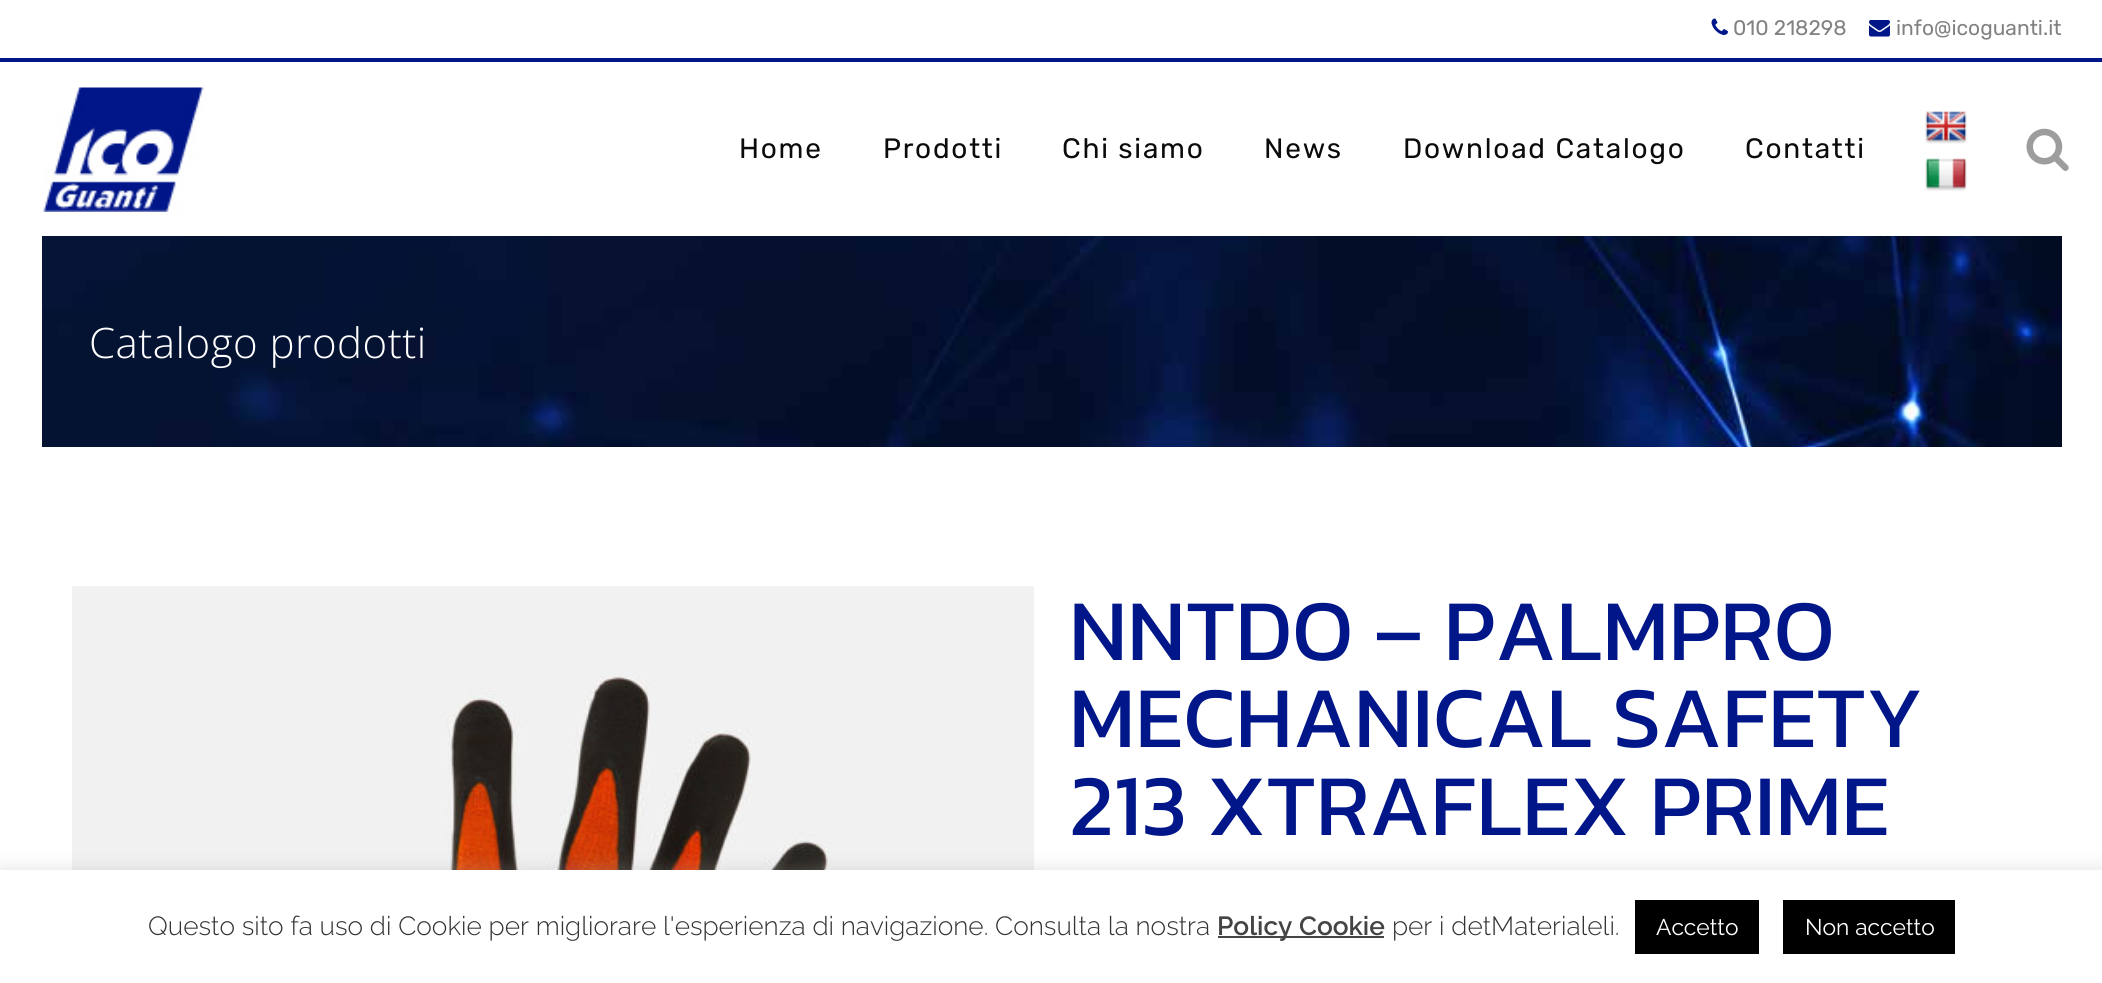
import math
import cairo

surface = cairo.ImageSurface(cairo.Format.RGB24, 2102, 983)
ctx = cairo.Context(surface)
options = cairo.FontOptions()
options.set_hint_metrics(cairo.HintMetrics.OFF)
options.set_hint_style(cairo.HintStyle.NONE)
ctx.set_font_options(options)
ctx.set_miter_limit(4)


def ink(r, g, b):
    ctx.set_source_rgb(r / 255, g / 255, b / 255)


def write(x, y, s, family, size, color, bold=False, italic=False):
    ctx.select_font_face(family, cairo.FontSlant.ITALIC if italic else cairo.FontSlant.NORMAL, cairo.FontWeight.BOLD if bold else cairo.FontWeight.NORMAL)
    ctx.set_font_size(size)
    ink(*color)
    ctx.move_to(x, y)
    ctx.show_text(s)


def write_spaced(x, y, s, letter, word):
    ctx.move_to(x, y)
    for ch in s:
        ctx.show_text(ch)
        ctx.rel_move_to(letter + word * (ch == ' '), 0)


def block(x, y, w, h, *color):
    ink(*color)
    ctx.rectangle(x, y, w, h)
    ctx.fill()


def round_path(x, y, w, h, r):
    ctx.new_sub_path()
    for i, (u, v) in enumerate([(x + w - r, y + h - r), (x + r, y + h - r), (x + r, y + r), (x + w - r, y + r)]):
        ctx.arc(u, v, r, i * math.pi / 2, (i + 1) * math.pi / 2)
    ctx.close_path()


def blur_box(x, y, w, h, r, blur, alpha):
    ctx.push_group_with_content(cairo.Content.ALPHA)
    ctx.set_operator(cairo.Operator.SOURCE)
    for i in range(15, -16, -2):
        e = blur * i / 6
        if min(w, h) + 2 * e > 0:
            ctx.set_source_rgba(0, 0, 0, alpha * math.erfc((i - 1) / 8.5) / 2)
            round_path(x - e, y - e, w + 2 * e, h + 2 * e, max(0, min(r + e + blur * .6, min(w, h) / 2 + e)))
            ctx.fill()
    ctx.mask(ctx.pop_group())


def paste(path, x, y, w, h):
    ctx.save()
    ctx.set_source_surface(cairo.ImageSurface.create_from_png(path), x, y)
    ctx.rectangle(x, y, w, h)
    ctx.fill()
    ctx.restore()


s1 = dict(family="Rubik", size=21, color=(131, 130, 130))
s2 = dict(family="Kanit", size=87.5, color=(0, 22, 137))
s3 = dict(family="Raleway Light", size=26.25, color=(51, 51, 51))
s4 = dict(family="Raleway SemiBold", size=26.25, color=(68, 68, 68))
s5 = dict(family="Raleway", size=22.75, color=(255, 255, 255))

ink(255, 255, 255)
ctx.paint()
block(0, 58, 2102, 4, 0, 22, 137)
paste("pic1.png", 1711, 18, 17, 17)
write(1733, 35, "010 218298", **s1)
paste("pic2.png", 1869, 20, 21, 17)
write(1896, 35, "info@icoguanti.it", **s1)
paste("pic3.png", 43, 87, 161, 125)
ctx.set_font_size(28)
ink(11, 11, 11)
write_spaced(739, 158, "Home", 1.75, 0)
write_spaced(883, 158, "Prodotti", 1.75, 0)
write_spaced(1062, 158, "Chi siamo", 1.75, 0)
write_spaced(1264, 158, "News", 1.75, 0)
write_spaced(1403, 158, "Download Catalogo", 1.75, 0)
write_spaced(1745, 158, "Contatti", 1.75, 0)
paste("pic4.png", 1925, 111, 42, 33)
paste("pic5.png", 1925, 158, 42, 33)
paste("pic6.png", 2026, 128, 43, 43)
paste("pic7.png", 42, 236, 2020, 211)
ctx.select_font_face("Open Sans Light")
ctx.set_font_size(42)
ink(255, 255, 255)
write_spaced(89, 358, "Catalogo prodotti", 0.5, 0)
paste("pic8.png", 72, 586, 962, 284)
write(1069, 660, "NNTDO – PALMPRO", **s2)
write(1069, 747, "MECHANICAL SAFETY", **s2)
write(1069, 835, "213 XTRAFLEX PRIME", **s2)
ink(172, 171, 171)
blur_box(0, 868, 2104, 114, 0, 9, 0.3)
block(0, 870, 2102, 113, 255, 255, 255)
write(148, 935, "Questo sito fa uso di Cookie per migliorare l'esperienza di navigazione. Consulta la nostra", **s3)
block(1218, 936, 166, 2, 68, 68, 68)
write(1217, 935, "Policy Cookie", **s4)
write(1392, 935, "per i detMaterialeli.", **s3)
block(1635, 900, 124, 54, 0, 0, 0)
write(1656, 935, "Accetto", **s5)
block(1783, 900, 172, 54, 0, 0, 0)
write(1805, 935, "Non accetto", **s5)
surface.write_to_png("screenshot.png")
